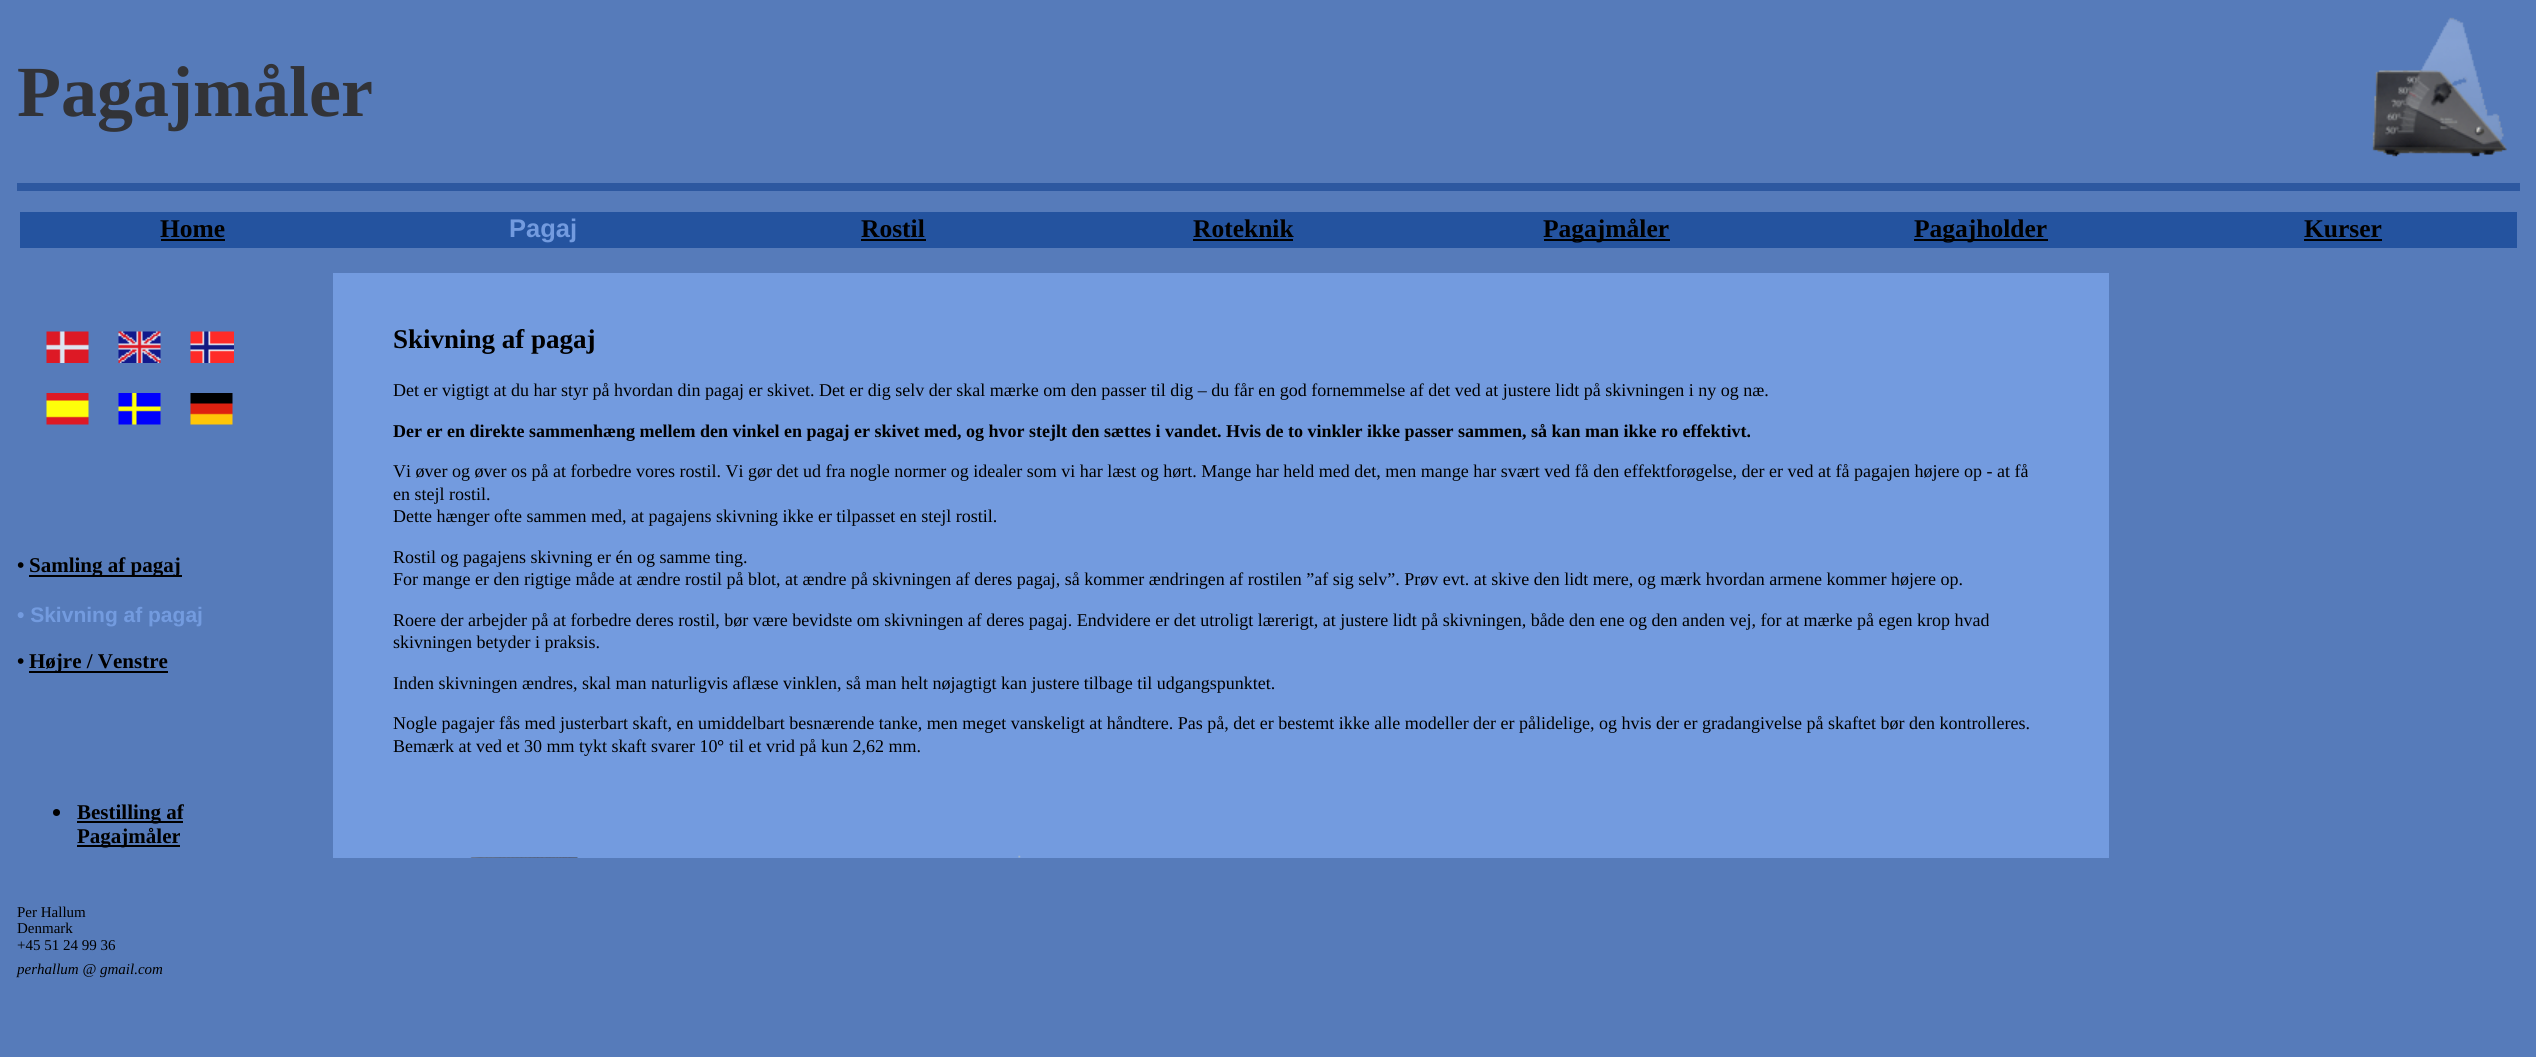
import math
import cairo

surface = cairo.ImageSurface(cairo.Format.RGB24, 2536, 1057)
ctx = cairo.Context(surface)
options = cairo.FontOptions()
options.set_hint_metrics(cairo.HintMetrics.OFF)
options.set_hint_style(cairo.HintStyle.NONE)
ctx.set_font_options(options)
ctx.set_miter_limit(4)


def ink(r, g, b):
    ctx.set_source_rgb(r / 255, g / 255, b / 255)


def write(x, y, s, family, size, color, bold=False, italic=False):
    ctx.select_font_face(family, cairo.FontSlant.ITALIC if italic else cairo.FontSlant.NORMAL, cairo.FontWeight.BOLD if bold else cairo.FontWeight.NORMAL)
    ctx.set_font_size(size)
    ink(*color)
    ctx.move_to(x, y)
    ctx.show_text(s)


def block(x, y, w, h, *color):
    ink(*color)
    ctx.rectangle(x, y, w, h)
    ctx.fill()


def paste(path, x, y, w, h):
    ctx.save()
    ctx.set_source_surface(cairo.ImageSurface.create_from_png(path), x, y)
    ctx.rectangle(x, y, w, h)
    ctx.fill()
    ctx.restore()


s1 = dict(family="Liberation Serif", size=72, color=(50, 51, 55), bold=True)
s2 = dict(family="Liberation Serif", size=25.5, color=(0, 0, 0), bold=True)
s3 = dict(family="Liberation Sans", size=25.5, color=(115, 155, 223), bold=True)
s4 = dict(family="Liberation Serif", size=21, color=(0, 0, 0), bold=True)
s5 = dict(family="Liberation Sans", size=21, color=(115, 155, 223), bold=True)
s6 = dict(family="Liberation Serif", size=15, color=(0, 0, 0))
s7 = dict(family="Liberation Serif", size=15, color=(0, 0, 0), italic=True)
s8 = dict(family="Liberation Serif", size=27, color=(0, 0, 0), bold=True)
s9 = dict(family="Liberation Serif", size=18, color=(0, 0, 0))
s10 = dict(family="Liberation Serif", size=18, color=(0, 0, 0), bold=True)

ink(86, 123, 186)
ctx.paint()
write(17, 116, "Pagajmåler", **s1)
paste("pic1.png", 2372, 17, 135, 140)
block(17, 183, 2503, 8, 45, 88, 160)
block(20, 212, 2497, 36, 36, 83, 159)
write(160, 237, "Home", **s2)
block(161, 239, 64, 2, 0, 0, 0)
write(509, 237, "Pagaj", **s3)
write(861, 237, "Rostil", **s2)
block(861, 239, 65, 2, 0, 0, 0)
write(1193, 237, "Roteknik", **s2)
block(1193, 239, 100, 2, 0, 0, 0)
block(1544, 239, 126, 2, 0, 0, 0)
write(1543, 237, "Pagajmåler", **s2)
block(1914, 239, 134, 2, 0, 0, 0)
write(1914, 237, "Pagajholder", **s2)
write(2304, 237, "Kurser", **s2)
block(2304, 239, 78, 2, 0, 0, 0)
paste("pic2.png", 46, 331, 43, 32)
paste("pic3.png", 118, 331, 43, 32)
paste("pic4.png", 190, 331, 44, 32)
paste("pic5.png", 46, 393, 43, 32)
paste("pic6.png", 118, 393, 43, 32)
paste("pic7.png", 190, 393, 43, 32)
write(17, 572, "•", **s4)
block(29, 575, 153, 2, 0, 0, 0)
write(29, 572, "Samling af pagaj", **s4)
write(17, 622, "• Skivning af pagaj", **s5)
write(17, 668, "•", **s4)
block(29, 671, 139, 2, 0, 0, 0)
write(29, 668, "Højre / Venstre", **s4)
ctx.new_path()
ctx.arc(56.5, 812.5, 3.5, 0, 2 * math.pi)
ctx.fill()
block(77, 821, 106, 2, 0, 0, 0)
write(77, 819, "Bestilling af", **s4)
block(77, 845, 103, 2, 0, 0, 0)
write(77, 843, "Pagajmåler", **s4)
write(17, 917, "Per Hallum", **s6)
write(17, 933, "Denmark", **s6)
write(17, 950, "+45 51 24 99 36", **s6)
write(17, 974, "perhallum @ gmail.com", **s7)
block(333, 273, 1776, 585, 115, 155, 223)
write(393, 348, "Skivning af pagaj", **s8)
write(393, 396, "Det er vigtigt at du har styr på hvordan din pagaj er skivet. Det er dig selv der skal mærke om den passer til dig – du får en god fornemmelse af det ved at justere lidt på skivningen i ny og næ.", **s9)
write(393, 437, "Der er en direkte sammenhæng mellem den vinkel en pagaj er skivet med, og hvor stejlt den sættes i vandet. Hvis de to vinkler ikke passer sammen, så kan man ikke ro effektivt.", **s10)
write(393, 477, "Vi øver og øver os på at forbedre vores rostil. Vi gør det ud fra nogle normer og idealer som vi har læst og hørt. Mange har held med det, men mange har svært ved få den effektforøgelse, der er ved at få pagajen højere op - at få", **s9)
write(393, 500, "en stejl rostil.", **s9)
write(393, 522, "Dette hænger ofte sammen med, at pagajens skivning ikke er tilpasset en stejl rostil.", **s9)
write(393, 563, "Rostil og pagajens skivning er én og samme ting.", **s9)
write(393, 585, "For mange er den rigtige måde at ændre rostil på blot, at ændre på skivningen af deres pagaj, så kommer ændringen af rostilen ”af sig selv”. Prøv evt. at skive den lidt mere, og mærk hvordan armene kommer højere op.", **s9)
write(393, 626, "Roere der arbejder på at forbedre deres rostil, bør være bevidste om skivningen af deres pagaj. Endvidere er det utroligt lærerigt, at justere lidt på skivningen, både den ene og den anden vej, for at mærke på egen krop hvad", **s9)
write(393, 648, "skivningen betyder i praksis.", **s9)
write(393, 689, "Inden skivningen ændres, skal man naturligvis aflæse vinklen, så man helt nøjagtigt kan justere tilbage til udgangspunktet.", **s9)
write(393, 729, "Nogle pagajer fås med justerbart skaft, en umiddelbart besnærende tanke, men meget vanskeligt at håndtere. Pas på, det er bestemt ikke alle modeller der er pålidelige, og hvis der er gradangivelse på skaftet bør den kontrolleres.", **s9)
write(393, 752, "Bemærk at ved et 30 mm tykt skaft svarer 10", **s9)
write(717, 752, "°", **s10)
write(729, 752, "til et vrid på kun 2,62 mm.", **s9)
paste("pic8.png", 470, 855, 551, 3)
surface.write_to_png("screenshot.png")
